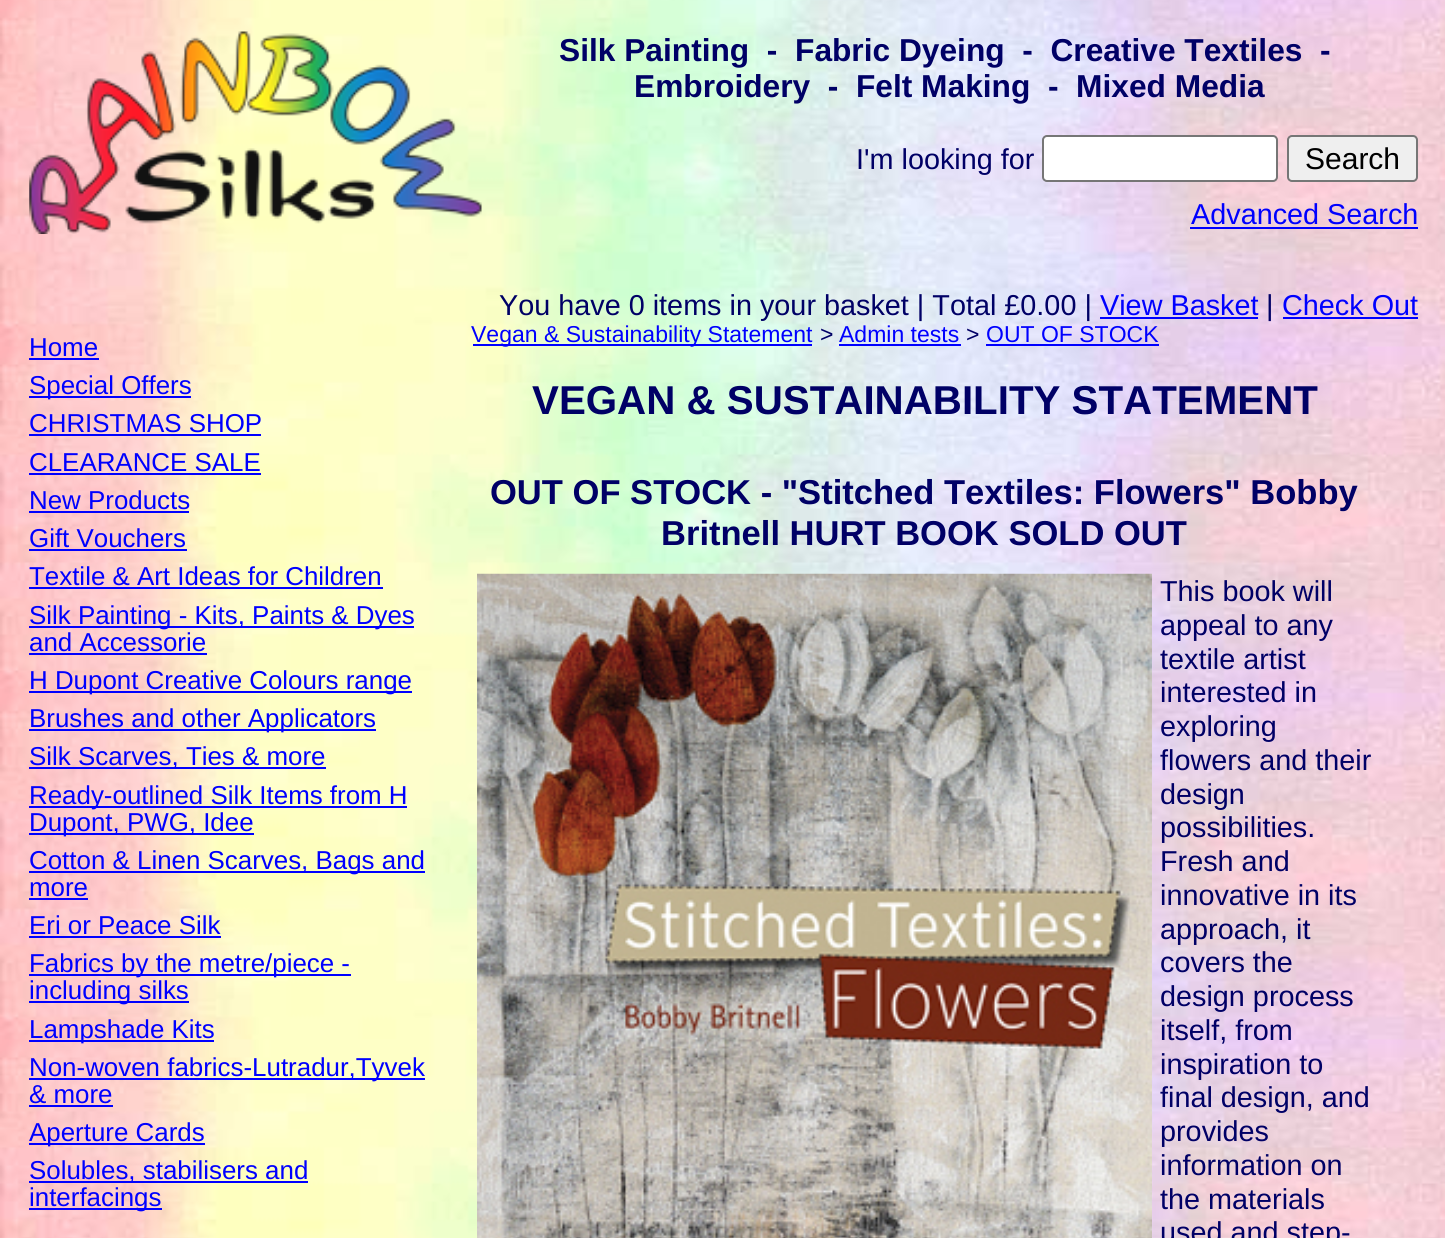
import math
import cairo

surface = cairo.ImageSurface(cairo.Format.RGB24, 1445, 1238)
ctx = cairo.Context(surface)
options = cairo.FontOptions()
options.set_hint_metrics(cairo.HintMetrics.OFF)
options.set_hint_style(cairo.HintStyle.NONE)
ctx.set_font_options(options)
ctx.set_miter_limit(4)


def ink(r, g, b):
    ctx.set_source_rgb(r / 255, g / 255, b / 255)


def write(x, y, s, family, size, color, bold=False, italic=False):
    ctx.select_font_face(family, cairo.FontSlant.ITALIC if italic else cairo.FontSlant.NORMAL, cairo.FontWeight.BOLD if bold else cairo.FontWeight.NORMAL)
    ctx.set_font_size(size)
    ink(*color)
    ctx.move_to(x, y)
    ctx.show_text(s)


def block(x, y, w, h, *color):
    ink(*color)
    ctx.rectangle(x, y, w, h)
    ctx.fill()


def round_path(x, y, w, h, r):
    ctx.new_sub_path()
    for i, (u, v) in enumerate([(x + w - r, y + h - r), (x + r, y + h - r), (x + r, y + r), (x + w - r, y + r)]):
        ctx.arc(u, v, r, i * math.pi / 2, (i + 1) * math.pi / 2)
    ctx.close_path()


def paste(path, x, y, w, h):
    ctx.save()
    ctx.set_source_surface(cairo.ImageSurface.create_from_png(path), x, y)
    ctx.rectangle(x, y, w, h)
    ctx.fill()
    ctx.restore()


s1 = dict(family="Liberation Sans", size=31.7, color=(0, 0, 102), bold=True)
s2 = dict(family="Liberation Sans", size=28.8, color=(0, 0, 102))
s3 = dict(family="Liberation Sans", size=30, color=(0, 0, 0))
s4 = dict(family="Liberation Sans", size=28.8, color=(0, 0, 255))
s5 = dict(family="Liberation Sans", size=25.9, color=(0, 0, 255))
s6 = dict(family="Liberation Sans", size=23, color=(0, 0, 255))
s7 = dict(family="Liberation Sans", size=23, color=(0, 0, 102))
s8 = dict(family="Liberation Sans", size=40.3, color=(0, 0, 102), bold=True)
s9 = dict(family="Liberation Sans", size=34.55, color=(0, 0, 102), bold=True)

ink(255, 255, 255)
ctx.paint()
paste("pic1.png", 0, 0, 1445, 1238)
paste("pic2.png", 29, 31, 453, 203)
write(559, 61, "Silk Painting  -  Fabric Dyeing  -  Creative Textiles  -", **s1)
write(634, 97, "Embroidery  -  Felt Making  -  Mixed Media", **s1)
write(856, 169, "I'm looking for", **s2)
ink(255, 255, 255)
round_path(1043, 136, 234, 45, 4)
ctx.fill_preserve()
ink(118, 118, 118)
ctx.stroke()
ink(239, 239, 239)
round_path(1288, 136, 129, 45, 4)
ctx.fill_preserve()
ink(118, 118, 118)
ctx.stroke()
write(1305, 169, "Search", **s3)
write(1191, 224, "Advanced Search", **s4)
block(1190, 227, 228, 2, 0, 0, 255)
write(499, 315, "You have 0 items in your basket | Total £0.00 |", **s2)
write(1100, 315, "View Basket", **s4)
block(1100, 317, 158, 2, 0, 0, 255)
write(1266, 315, "|", **s2)
write(1282, 315, "Check Out", **s4)
block(1283, 317, 135, 2, 0, 0, 255)
write(29, 356, "Home", **s5)
block(29, 358, 70, 2, 0, 0, 255)
block(29, 396, 162, 2, 0, 0, 255)
write(29, 394, "Special Offers", **s5)
write(29, 432, "CHRISTMAS SHOP", **s5)
block(29, 434, 232, 2, 0, 0, 255)
write(29, 471, "CLEARANCE SALE", **s5)
block(29, 473, 232, 2, 0, 0, 255)
write(29, 509, "New Products", **s5)
block(29, 511, 160, 2, 0, 0, 255)
write(29, 547, "Gift Vouchers", **s5)
block(29, 549, 158, 2, 0, 0, 255)
write(29, 585, "Textile & Art Ideas for Children", **s5)
block(29, 587, 354, 2, 0, 0, 255)
block(29, 626, 385, 2, 0, 0, 255)
write(29, 624, "Silk Painting - Kits, Paints & Dyes", **s5)
write(29, 651, "and Accessorie", **s5)
block(29, 653, 178, 2, 0, 0, 255)
block(29, 691, 383, 2, 0, 0, 255)
write(29, 689, "H Dupont Creative Colours range", **s5)
block(29, 729, 347, 2, 0, 0, 255)
write(29, 727, "Brushes and other Applicators", **s5)
block(29, 767, 297, 2, 0, 0, 255)
write(29, 765, "Silk Scarves, Ties & more", **s5)
block(29, 806, 378, 2, 0, 0, 255)
write(29, 804, "Ready-outlined Silk Items from H", **s5)
block(29, 833, 225, 2, 0, 0, 255)
write(29, 831, "Dupont, PWG, Idee", **s5)
block(29, 871, 396, 2, 0, 0, 255)
write(29, 869, "Cotton & Linen Scarves, Bags and", **s5)
write(29, 896, "more", **s5)
block(29, 898, 59, 2, 0, 0, 255)
write(29, 934, "Eri or Peace Silk", **s5)
block(29, 936, 192, 2, 0, 0, 255)
block(29, 974, 322, 2, 0, 0, 255)
write(29, 972, "Fabrics by the metre/piece -", **s5)
block(29, 1001, 160, 2, 0, 0, 255)
write(29, 999, "including silks", **s5)
block(29, 1040, 185, 2, 0, 0, 255)
write(29, 1038, "Lampshade Kits", **s5)
block(29, 1078, 396, 2, 0, 0, 255)
write(29, 1076, "Non-woven fabrics-Lutradur,Tyvek", **s5)
write(29, 1103, "& more", **s5)
block(29, 1105, 84, 2, 0, 0, 255)
block(29, 1143, 176, 2, 0, 0, 255)
write(29, 1141, "Aperture Cards", **s5)
block(29, 1181, 279, 2, 0, 0, 255)
write(29, 1179, "Solubles, stabilisers and", **s5)
block(29, 1208, 133, 2, 0, 0, 255)
write(29, 1206, "interfacings", **s5)
block(473, 344, 339, 2, 0, 0, 255)
write(471, 342, "Vegan & Sustainability Statement", **s6)
write(820, 342, ">", **s7)
write(839, 342, "Admin tests", **s6)
block(839, 344, 122, 2, 0, 0, 255)
write(966, 342, ">", **s7)
write(986, 342, "OUT OF STOCK", **s6)
block(986, 344, 173, 2, 0, 0, 255)
write(532, 414, "VEGAN & SUSTAINABILITY STATEMENT", **s8)
write(490, 504, "OUT OF STOCK - \"Stitched Textiles: Flowers\" Bobby", **s9)
write(661, 545, "Britnell HURT BOOK SOLD OUT", **s9)
paste("pic3.png", 477, 573, 675, 665)
write(1160, 601, "This book will", **s2)
write(1160, 635, "appeal to any", **s2)
write(1160, 669, "textile artist", **s2)
write(1160, 702, "interested in", **s2)
write(1160, 736, "exploring", **s2)
write(1160, 770, "flowers and their", **s2)
write(1160, 804, "design", **s2)
write(1160, 837, "possibilities.", **s2)
write(1160, 871, "Fresh and", **s2)
write(1160, 905, "innovative in its", **s2)
write(1160, 939, "approach, it", **s2)
write(1160, 972, "covers the", **s2)
write(1160, 1006, "design process", **s2)
write(1160, 1040, "itself, from", **s2)
write(1160, 1074, "inspiration to", **s2)
write(1160, 1107, "final design, and", **s2)
write(1160, 1141, "provides", **s2)
write(1160, 1175, "information on", **s2)
write(1160, 1209, "the materials", **s2)
write(1160, 1242, "used and step-", **s2)
surface.write_to_png("screenshot.png")
